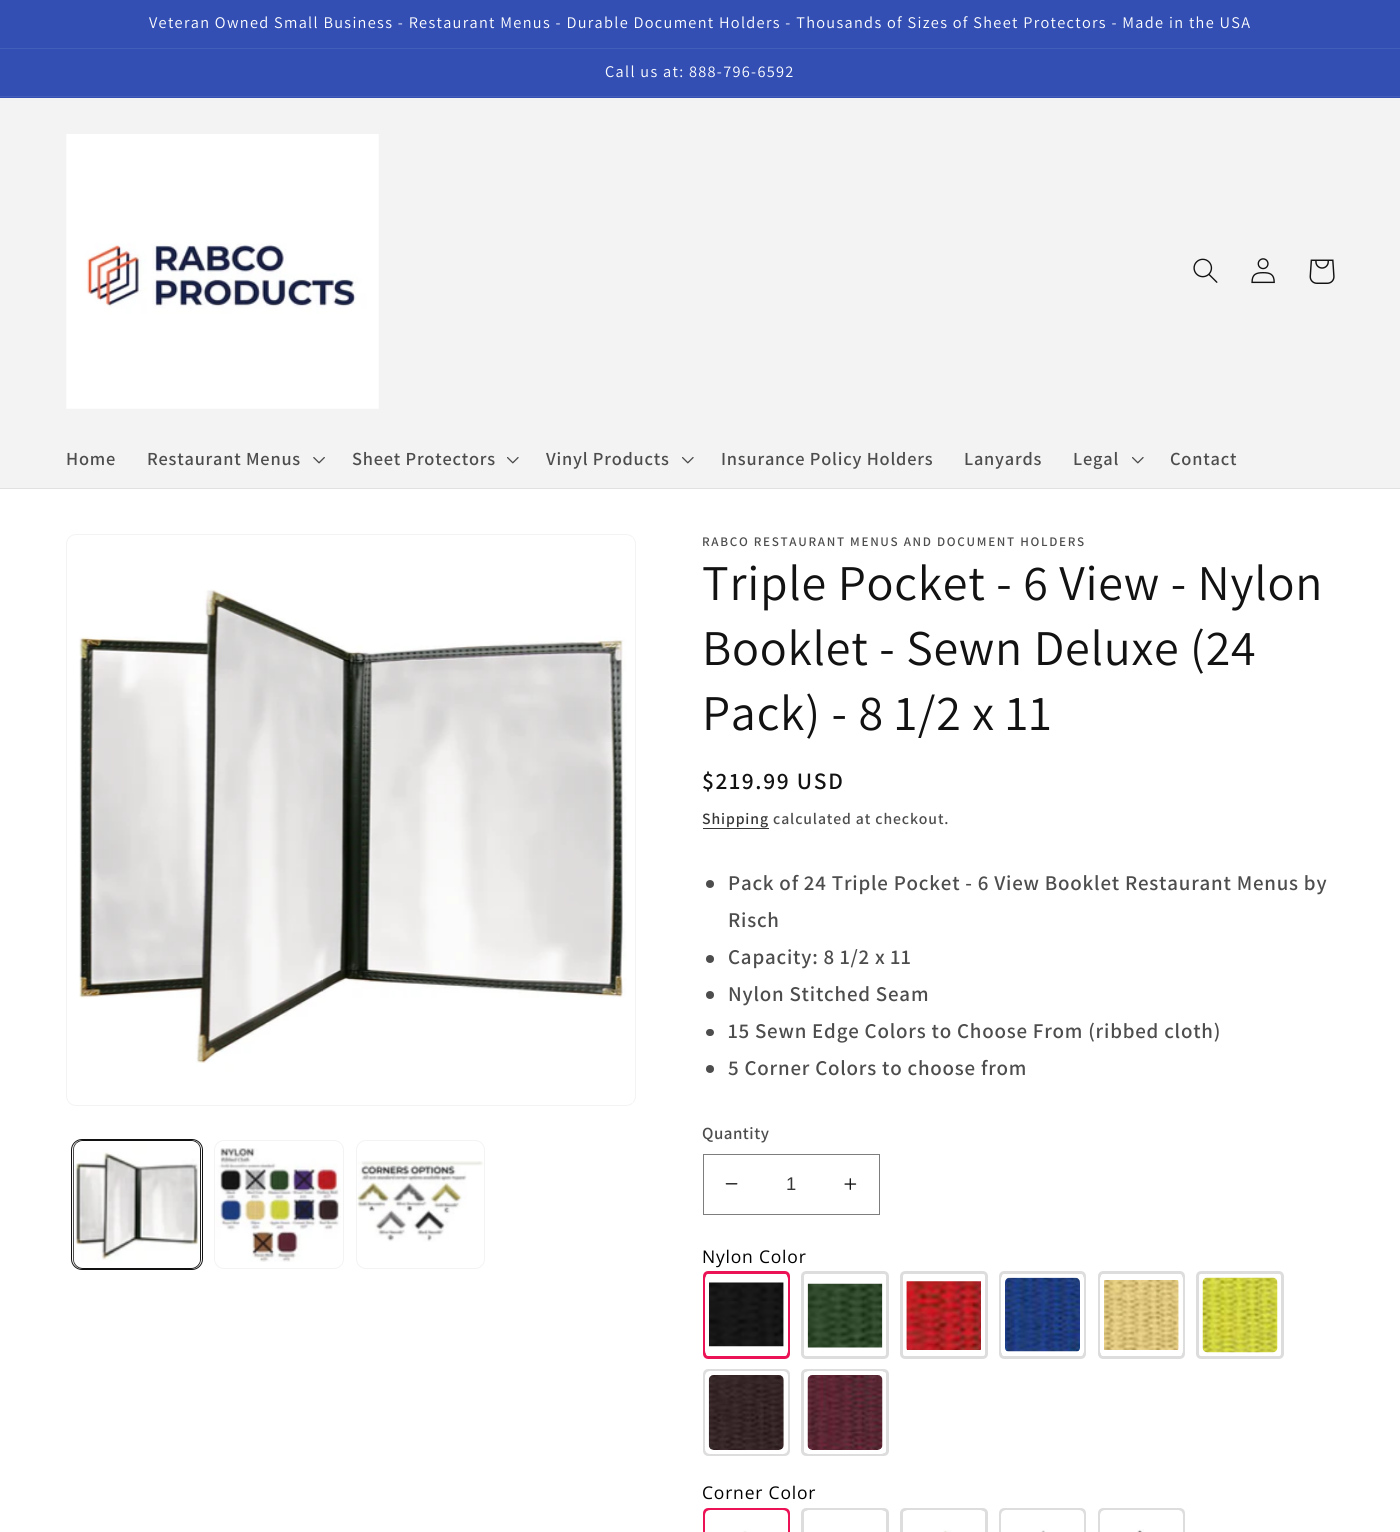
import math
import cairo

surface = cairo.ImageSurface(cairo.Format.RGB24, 1400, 1532)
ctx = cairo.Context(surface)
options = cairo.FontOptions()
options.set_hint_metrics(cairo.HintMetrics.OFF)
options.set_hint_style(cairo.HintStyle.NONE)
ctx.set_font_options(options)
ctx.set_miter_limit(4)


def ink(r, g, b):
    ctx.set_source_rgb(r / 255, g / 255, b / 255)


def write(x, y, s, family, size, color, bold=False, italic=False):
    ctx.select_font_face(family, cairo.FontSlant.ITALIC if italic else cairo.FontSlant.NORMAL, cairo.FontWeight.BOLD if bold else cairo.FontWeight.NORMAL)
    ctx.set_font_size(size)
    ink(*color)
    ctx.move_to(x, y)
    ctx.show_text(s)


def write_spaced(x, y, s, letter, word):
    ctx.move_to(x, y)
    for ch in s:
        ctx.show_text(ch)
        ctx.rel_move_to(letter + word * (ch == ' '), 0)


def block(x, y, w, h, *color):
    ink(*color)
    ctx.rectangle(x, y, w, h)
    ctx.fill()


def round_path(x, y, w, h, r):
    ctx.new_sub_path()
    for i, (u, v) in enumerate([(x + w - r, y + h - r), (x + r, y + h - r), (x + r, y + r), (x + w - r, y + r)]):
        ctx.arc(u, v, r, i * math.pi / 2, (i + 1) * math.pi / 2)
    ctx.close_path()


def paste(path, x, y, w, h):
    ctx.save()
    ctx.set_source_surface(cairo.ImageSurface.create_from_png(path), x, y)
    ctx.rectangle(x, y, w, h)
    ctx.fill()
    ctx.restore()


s1 = dict(family="Liberation Sans", size=18.4, color=(54, 54, 54))

ink(255, 255, 255)
ctx.paint()
block(0, 0, 1400, 48, 51, 79, 180)
block(0, 48, 1400, 1, 67, 93, 186)
ctx.select_font_face("Assistant")
ctx.set_font_size(16.25)
ink(255, 255, 255)
write_spaced(149, 28, "Veteran Owned Small Business - Restaurant Menus - Durable Document Holders - Thousands of Sizes of Sheet Protectors - Made in the USA", 1.31, 0)
block(0, 49, 1400, 49, 51, 79, 180)
block(0, 96, 1400, 1, 67, 93, 186)
ink(255, 255, 255)
write_spaced(605, 77, "Call us at: 888-796-6592", 1.31, 0)
block(0, 98, 1400, 390, 243, 243, 243)
block(0, 488, 1400, 1, 225, 225, 225)
paste("pic1.png", 66, 134, 313, 275)
paste("pic2.png", 1193, 258, 25, 25)
paste("pic3.png", 1251, 258, 24, 26)
paste("pic4.png", 1309, 259, 26, 25)
ctx.select_font_face("Assistant SemiBold")
ctx.set_font_size(18.4)
ink(77, 77, 77)
write_spaced(66, 465, "Home", 0.8, 0)
write_spaced(147, 465, "Restaurant Menus", 0.8, 0)
paste("pic5.png", 313, 457, 12, 7)
write_spaced(352, 465, "Sheet Protectors", 0.8, 0)
paste("pic6.png", 507, 457, 12, 7)
write_spaced(546, 465, "Vinyl Products", 0.8, 0)
paste("pic6.png", 682, 457, 12, 7)
write_spaced(721, 465, "Insurance Policy Holders", 0.8, 0)
write_spaced(964, 465, "Lanyards", 0.8, 0)
write_spaced(1073, 465, "Legal", 0.8, 0)
paste("pic6.png", 1132, 457, 12, 7)
write_spaced(1170, 465, "Contact", 0.8, 0)
round_path(66.5, 534.5, 569, 571, 9.5)
ink(243, 243, 243)
ctx.set_line_width(1)
ctx.stroke()
paste("pic7.png", 79, 537, 554, 566)
round_path(71.5, 1139.5, 131, 130, 10.5)
ink(18, 18, 18)
ctx.stroke()
round_path(73.5, 1140.5, 127, 128, 9.5)
ctx.stroke()
paste("pic8.png", 73, 1141, 128, 127)
round_path(214.5, 1140.5, 129, 128, 9.5)
ink(243, 243, 243)
ctx.stroke()
paste("pic9.png", 215, 1148, 126, 114)
round_path(356.5, 1140.5, 128, 128, 9.5)
ctx.stroke()
paste("pic10.png", 357, 1160, 127, 82)
ctx.set_font_size(13.1)
ink(77, 77, 77)
write_spaced(702, 546, "RABCO RESTAURANT MENUS AND DOCUMENT HOLDERS", 1.7, 0)
ctx.select_font_face("Assistant")
ctx.set_font_size(50)
ink(18, 18, 18)
write_spaced(702, 600, "Triple Pocket - 6 View - Nylon", 0.75, 0)
write_spaced(702, 665, "Booklet - Sewn Deluxe (24", 0.75, 0)
write_spaced(702, 730, "Pack) - 8 1/2 x 11", 0.75, 0)
ctx.select_font_face("Assistant SemiBold")
ctx.set_font_size(23.5)
write_spaced(702, 789, "$219.99 USD", 1.7, 0)
ctx.set_font_size(15.75)
ink(54, 54, 54)
write_spaced(702, 824, "Shipping", 0.9, 0)
block(703, 828, 66, 1, 54, 54, 54)
ink(77, 77, 77)
write_spaced(773, 824, "calculated at checkout.", 0.9, 0)
ctx.new_path()
ctx.arc(710, 884, 4, 0, 2 * math.pi)
ctx.fill()
ctx.set_font_size(21)
write_spaced(728, 890, "Pack of 24 Triple Pocket - 6 View Booklet Restaurant Menus by", 0.8, 0)
write_spaced(728, 927, "Risch", 0.8, 0)
ctx.new_path()
ctx.arc(710, 959, 4, 0, 2 * math.pi)
ctx.fill()
write_spaced(728, 964, "Capacity: 8 1/2 x 11", 0.8, 0)
ctx.new_path()
ctx.arc(710, 995, 4, 0, 2 * math.pi)
ctx.fill()
write_spaced(728, 1001, "Nylon Stitched Seam", 0.8, 0)
round_path(706, 1029, 8, 7, 3.5)
ctx.fill()
write_spaced(728, 1038, "15 Sewn Edge Colors to Choose From (ribbed cloth)", 0.8, 0)
ctx.new_path()
ctx.arc(710, 1069, 4, 0, 2 * math.pi)
ctx.fill()
write_spaced(728, 1075, "5 Corner Colors to choose from", 0.8, 0)
ctx.set_font_size(17)
write_spaced(702, 1139, "Quantity", 0.5, 0)
paste("pic11.png", 725, 1183, 13, 2)
paste("pic12.png", 844, 1178, 13, 12)
ctx.rectangle(703.5, 1154.5, 176, 60)
ink(125, 125, 125)
ctx.stroke()
write(786, 1190, "1", **s1)
ctx.select_font_face("Open Sans")
ctx.set_font_size(17.5)
ink(0, 0, 0)
write_spaced(702, 1263, "Nylon Color", 0.8, 0)
round_path(704.5, 1272.5, 84, 85, 3.5)
ink(235, 18, 86)
ctx.set_line_width(3)
ctx.stroke()
round_path(707, 1276, 79, 78, 3)
ink(255, 255, 255)
ctx.set_line_width(4)
ctx.stroke()
paste("pic13.png", 709, 1282, 75, 65)
round_path(802.5, 1272.5, 85, 85, 3.5)
ink(221, 221, 221)
ctx.set_line_width(3)
ctx.stroke()
paste("pic14.png", 807, 1283, 76, 65)
round_path(901.5, 1272.5, 85, 85, 3.5)
ctx.stroke()
paste("pic15.png", 906, 1281, 75, 69)
round_path(1000.5, 1272.5, 84, 85, 3.5)
ctx.stroke()
round_path(1003, 1276, 79, 78, 3)
ink(255, 255, 255)
ctx.set_line_width(4)
ctx.stroke()
paste("pic16.png", 1005, 1277, 75, 75)
round_path(1099.5, 1272.5, 84, 85, 3.5)
ink(221, 221, 221)
ctx.set_line_width(3)
ctx.stroke()
round_path(1102, 1276, 79, 78, 3)
ink(255, 255, 255)
ctx.set_line_width(4)
ctx.stroke()
paste("pic17.png", 1104, 1280, 75, 70)
round_path(1197.5, 1272.5, 85, 85, 3.5)
ink(221, 221, 221)
ctx.set_line_width(3)
ctx.stroke()
paste("pic18.png", 1202, 1277, 76, 76)
round_path(704.5, 1370.5, 84, 84, 3.5)
ctx.stroke()
round_path(707, 1373, 79, 79, 3)
ink(255, 255, 255)
ctx.set_line_width(4)
ctx.stroke()
paste("pic19.png", 708, 1375, 76, 75)
round_path(802.5, 1370.5, 85, 84, 3.5)
ink(221, 221, 221)
ctx.set_line_width(3)
ctx.stroke()
round_path(806, 1373, 78, 79, 3)
ink(255, 255, 255)
ctx.set_line_width(4)
ctx.stroke()
paste("pic20.png", 807, 1375, 76, 75)
ink(0, 0, 0)
write_spaced(702, 1499, "Corner Color", 0.8, 0)
round_path(704.5, 1509.5, 84, 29, 3.5)
ink(235, 18, 86)
ctx.set_line_width(3)
ctx.stroke()
round_path(707, 1512, 79, 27, 3)
ink(255, 255, 255)
ctx.set_line_width(4)
ctx.stroke()
paste("pic21.png", 743, 1531, 4, 1)
round_path(802.5, 1509.5, 85, 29, 3.5)
ink(221, 221, 221)
ctx.set_line_width(3)
ctx.stroke()
round_path(806, 1512, 78, 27, 3)
ink(255, 255, 255)
ctx.set_line_width(4)
ctx.stroke()
round_path(901.5, 1509.5, 85, 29, 3.5)
ink(221, 221, 221)
ctx.set_line_width(3)
ctx.stroke()
round_path(905, 1512, 78, 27, 3)
ink(255, 255, 255)
ctx.set_line_width(4)
ctx.stroke()
paste("pic22.png", 943, 1530, 8, 2)
round_path(1000.5, 1509.5, 84, 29, 3.5)
ink(221, 221, 221)
ctx.set_line_width(3)
ctx.stroke()
round_path(1003, 1512, 79, 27, 3)
ink(255, 255, 255)
ctx.set_line_width(4)
ctx.stroke()
paste("pic23.png", 1041, 1530, 4, 2)
round_path(1099.5, 1509.5, 84, 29, 3.5)
ink(221, 221, 221)
ctx.set_line_width(3)
ctx.stroke()
round_path(1102, 1512, 79, 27, 3)
ink(255, 255, 255)
ctx.set_line_width(4)
ctx.stroke()
paste("pic24.png", 1137, 1529, 7, 3)
surface.write_to_png("screenshot.png")
